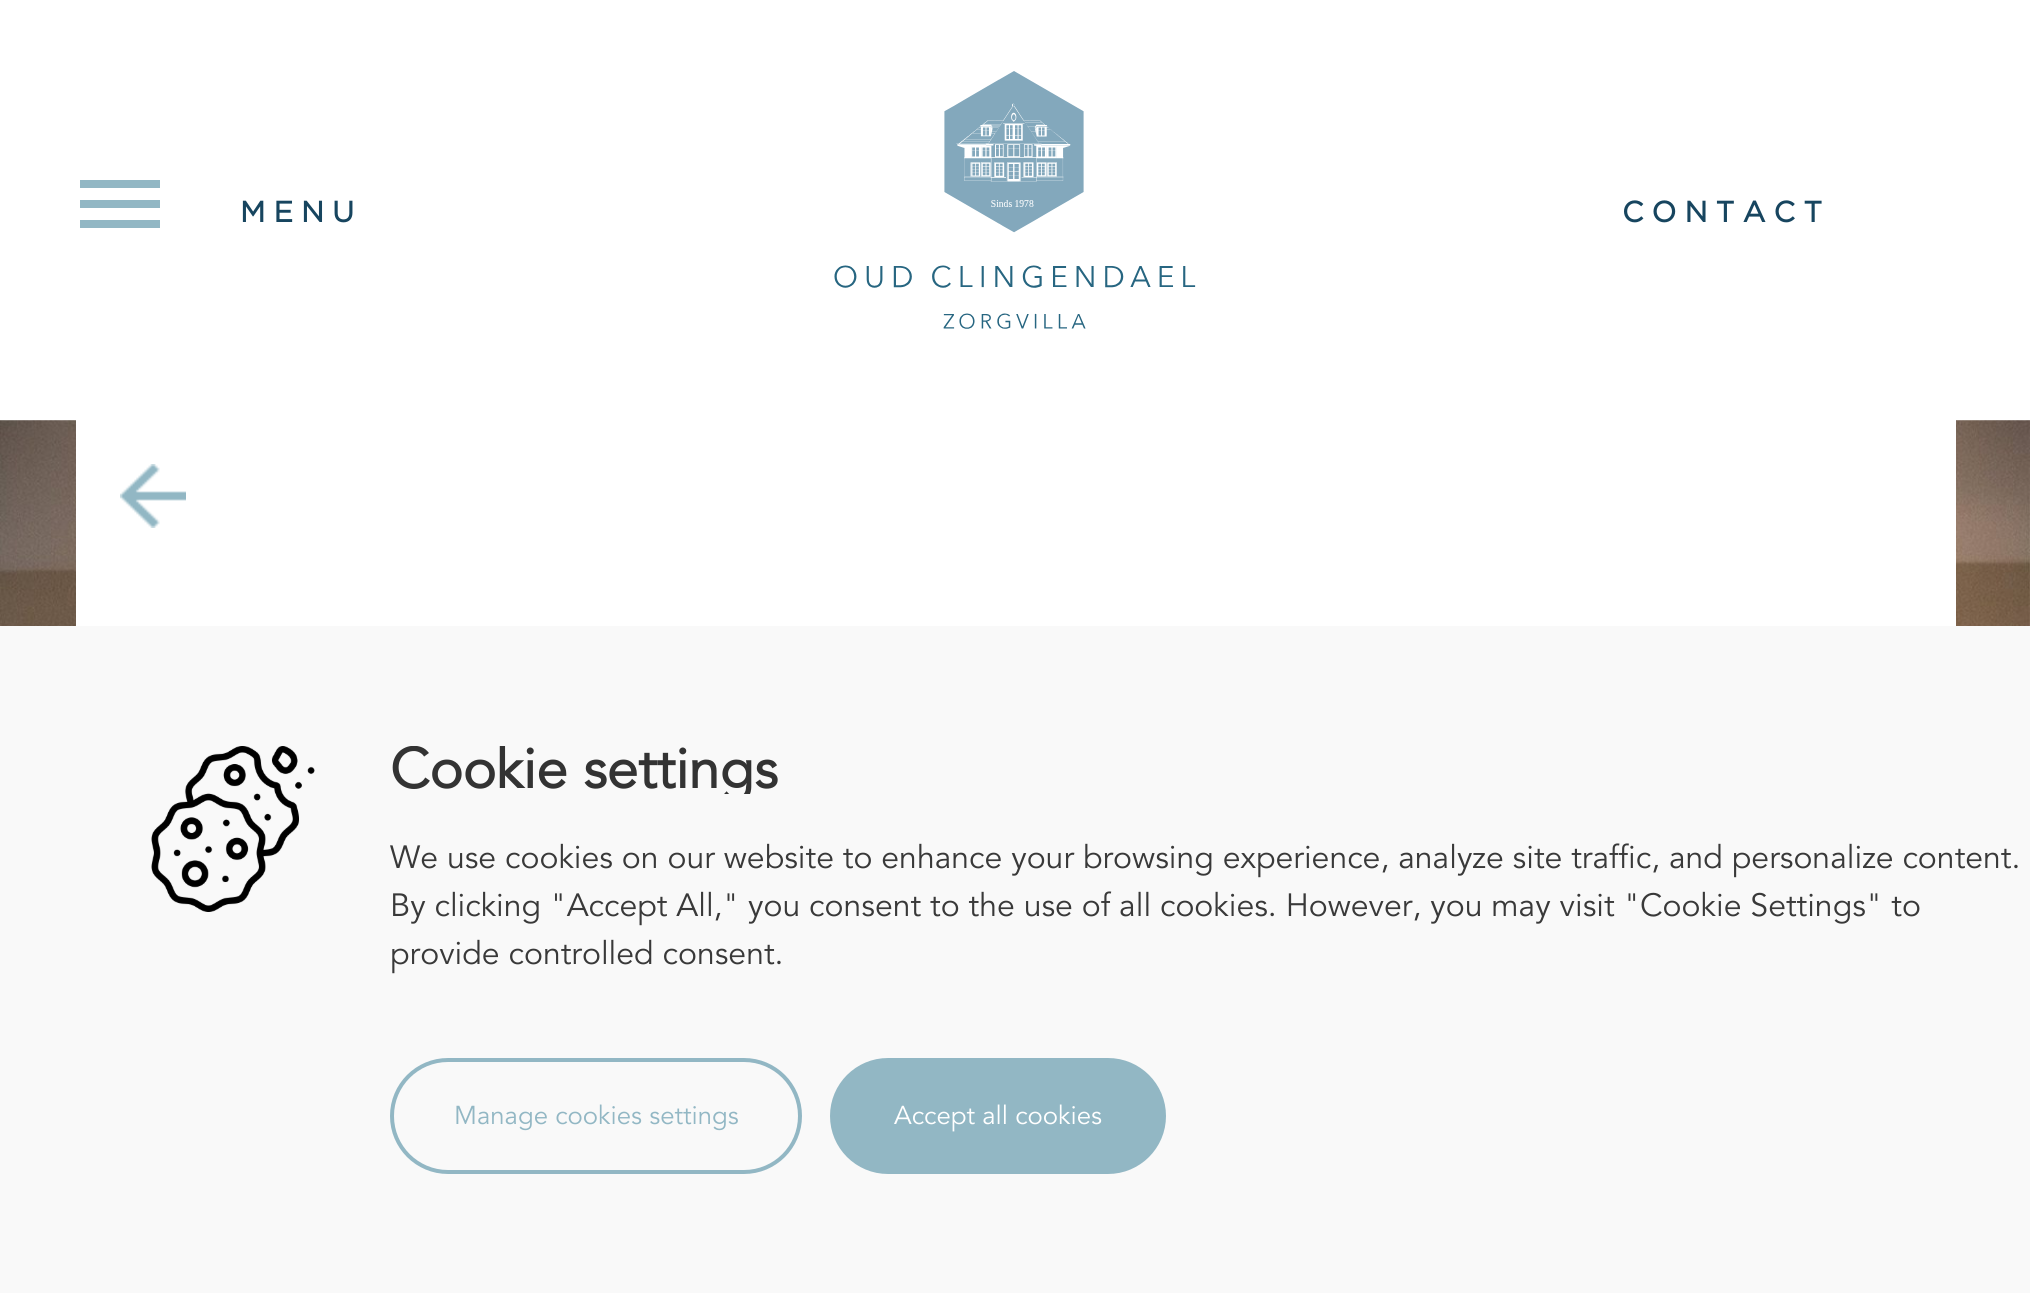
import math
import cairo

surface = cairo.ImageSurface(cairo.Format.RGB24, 2030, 1293)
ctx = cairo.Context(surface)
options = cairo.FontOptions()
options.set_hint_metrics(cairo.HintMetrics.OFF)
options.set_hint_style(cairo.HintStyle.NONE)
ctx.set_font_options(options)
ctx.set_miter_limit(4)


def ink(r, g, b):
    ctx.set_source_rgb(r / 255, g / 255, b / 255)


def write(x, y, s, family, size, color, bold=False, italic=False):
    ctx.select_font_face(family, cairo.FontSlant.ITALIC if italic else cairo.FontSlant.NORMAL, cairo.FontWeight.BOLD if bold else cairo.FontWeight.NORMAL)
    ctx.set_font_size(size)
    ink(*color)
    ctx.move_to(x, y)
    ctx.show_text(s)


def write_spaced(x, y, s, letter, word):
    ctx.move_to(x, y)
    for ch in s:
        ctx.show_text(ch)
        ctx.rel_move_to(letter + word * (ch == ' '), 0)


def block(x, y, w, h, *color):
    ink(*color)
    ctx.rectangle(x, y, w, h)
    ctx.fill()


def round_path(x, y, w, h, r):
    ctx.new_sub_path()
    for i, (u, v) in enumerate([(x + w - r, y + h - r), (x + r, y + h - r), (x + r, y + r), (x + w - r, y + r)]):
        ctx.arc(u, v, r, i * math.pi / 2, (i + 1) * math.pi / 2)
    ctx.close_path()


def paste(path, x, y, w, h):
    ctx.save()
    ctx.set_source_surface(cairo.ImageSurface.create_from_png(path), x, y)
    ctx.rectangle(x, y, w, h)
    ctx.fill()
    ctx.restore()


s1 = dict(family="Avenir", size=56, color=(51, 51, 51), bold=True)
s2 = dict(family="Avenir", size=32, color=(57, 57, 57))
s3 = dict(family="Avenir", size=25.75, color=(146, 183, 196))
s4 = dict(family="Avenir", size=25.75, color=(255, 255, 255))

ink(255, 255, 255)
ctx.paint()
block(80, 200, 80, 8, 146, 183, 196)
block(80, 180, 80, 8, 146, 183, 196)
block(80, 220, 80, 8, 146, 183, 196)
ctx.select_font_face("Gotham", cairo.FontSlant.NORMAL, cairo.FontWeight.BOLD)
ctx.set_font_size(29.25)
ink(23, 69, 95)
write_spaced(240, 222, "MENU", 8, 0)
paste("pic1.png", 834, 71, 362, 258)
write_spaced(1622, 222, "CONTACT", 8, 0)
paste("pic2.png", 0, 420, 2030, 206)
block(76, 420, 1880, 206, 255, 255, 255)
paste("pic3.png", 120, 464, 66, 64)
block(0, 626, 2030, 667, 249, 249, 249)
paste("pic4.png", 151, 746, 164, 166)
ctx.save()
ctx.rectangle(390, 746, 388, 48)
ctx.clip()
write(390, 788, "Cookie settings", **s1)
ctx.restore()
write(390, 868, "We use cookies on our website to enhance your browsing experience, analyze site traffic, and personalize content.", **s2)
write(390, 916, "By clicking \"Accept All,\" you consent to the use of all cookies. However, you may visit \"Cookie Settings\" to", **s2)
write(390, 964, "provide controlled consent.", **s2)
round_path(392, 1060, 408, 112, 56)
ink(146, 183, 196)
ctx.set_line_width(4)
ctx.stroke()
write(454, 1124, "Manage cookies settings", **s3)
round_path(832, 1060, 332, 112, 56)
ctx.fill_preserve()
ctx.stroke()
write(894, 1124, "Accept all cookies", **s4)
surface.write_to_png("screenshot.png")
